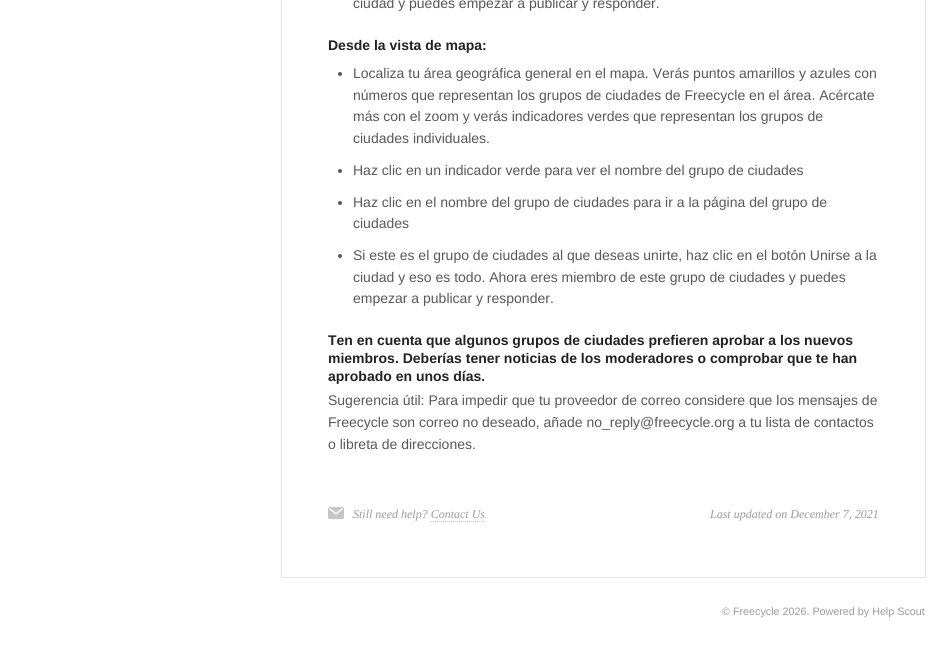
import math
import cairo

surface = cairo.ImageSurface(cairo.Format.RGB24, 946, 653)
ctx = cairo.Context(surface)
options = cairo.FontOptions()
options.set_hint_metrics(cairo.HintMetrics.OFF)
options.set_hint_style(cairo.HintStyle.NONE)
ctx.set_font_options(options)
ctx.set_miter_limit(4)


def ink(r, g, b):
    ctx.set_source_rgb(r / 255, g / 255, b / 255)


def write(x, y, s, family, size, color, bold=False, italic=False):
    ctx.select_font_face(family, cairo.FontSlant.ITALIC if italic else cairo.FontSlant.NORMAL, cairo.FontWeight.BOLD if bold else cairo.FontWeight.NORMAL)
    ctx.set_font_size(size)
    ink(*color)
    ctx.move_to(x, y)
    ctx.show_text(s)


def paste(path, x, y, w, h):
    ctx.save()
    ctx.set_source_surface(cairo.ImageSurface.create_from_png(path), x, y)
    ctx.rectangle(x, y, w, h)
    ctx.fill()
    ctx.restore()


s1 = dict(family="Liberation Sans", size=14, color=(88, 88, 88))
s2 = dict(family="Liberation Sans", size=14, color=(34, 34, 34), bold=True)
s3 = dict(family="Liberation Serif", size=12, color=(155, 155, 155), italic=True)
s4 = dict(family="Liberation Sans", size=10.75, color=(155, 155, 155))

ink(255, 255, 255)
ctx.paint()
ctx.rectangle(281.5, -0.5, 644, 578)
ink(233, 229, 229)
ctx.set_line_width(1)
ctx.stroke()
write(353, 8, "ciudad y puedes empezar a publicar y responder.", **s1)
write(328, 50, "Desde la vista de mapa:", **s2)
ink(88, 88, 88)
ctx.new_path()
ctx.arc(340, 74, 2, 0, 2 * math.pi)
ctx.fill()
write(353, 78, "Localiza tu área geográfica general en el mapa. Verás puntos amarillos y azules con", **s1)
write(353, 100, "números que representan los grupos de ciudades de Freecycle en el área. Acércate", **s1)
write(353, 121, "más con el zoom y verás indicadores verdes que representan los grupos de", **s1)
write(353, 143, "ciudades individuales.", **s1)
ctx.new_path()
ctx.arc(340, 171, 2, 0, 2 * math.pi)
ctx.fill()
write(353, 175, "Haz clic en un indicador verde para ver el nombre del grupo de ciudades", **s1)
ctx.new_path()
ctx.arc(340, 203, 2, 0, 2 * math.pi)
ctx.fill()
write(353, 207, "Haz clic en el nombre del grupo de ciudades para ir a la página del grupo de", **s1)
write(353, 228, "ciudades", **s1)
ctx.new_path()
ctx.arc(340, 256, 2, 0, 2 * math.pi)
ctx.fill()
write(353, 260, "Si este es el grupo de ciudades al que deseas unirte, haz clic en el botón Unirse a la", **s1)
write(353, 282, "ciudad y eso es todo. Ahora eres miembro de este grupo de ciudades y puedes", **s1)
write(353, 303, "empezar a publicar y responder.", **s1)
write(328, 345, "Ten en cuenta que algunos grupos de ciudades prefieren aprobar a los nuevos", **s2)
write(328, 363, "miembros. Deberías tener noticias de los moderadores o comprobar que te han", **s2)
write(328, 381, "aprobado en unos días.", **s2)
write(328, 405, "Sugerencia útil: Para impedir que tu proveedor de correo considere que los mensajes de", **s1)
write(328, 427, "Freecycle son correo no deseado, añade no_reply@freecycle.org a tu lista de contactos", **s1)
write(328, 449, "o libreta de direcciones.", **s1)
paste("pic1.png", 328, 507, 16, 12)
write(353, 518, "Still need help? Contact Us", **s3)
ctx.new_path()
ctx.move_to(431, 521.5)
ctx.line_to(485, 521.5)
ink(197, 197, 197)
ctx.set_dash([1, 1])
ctx.stroke()
write(710, 518, "Last updated on December 7, 2021", **s3)
write(722, 615, "© Freecycle 2026. Powered by Help Scout", **s4)
surface.write_to_png("screenshot.png")
